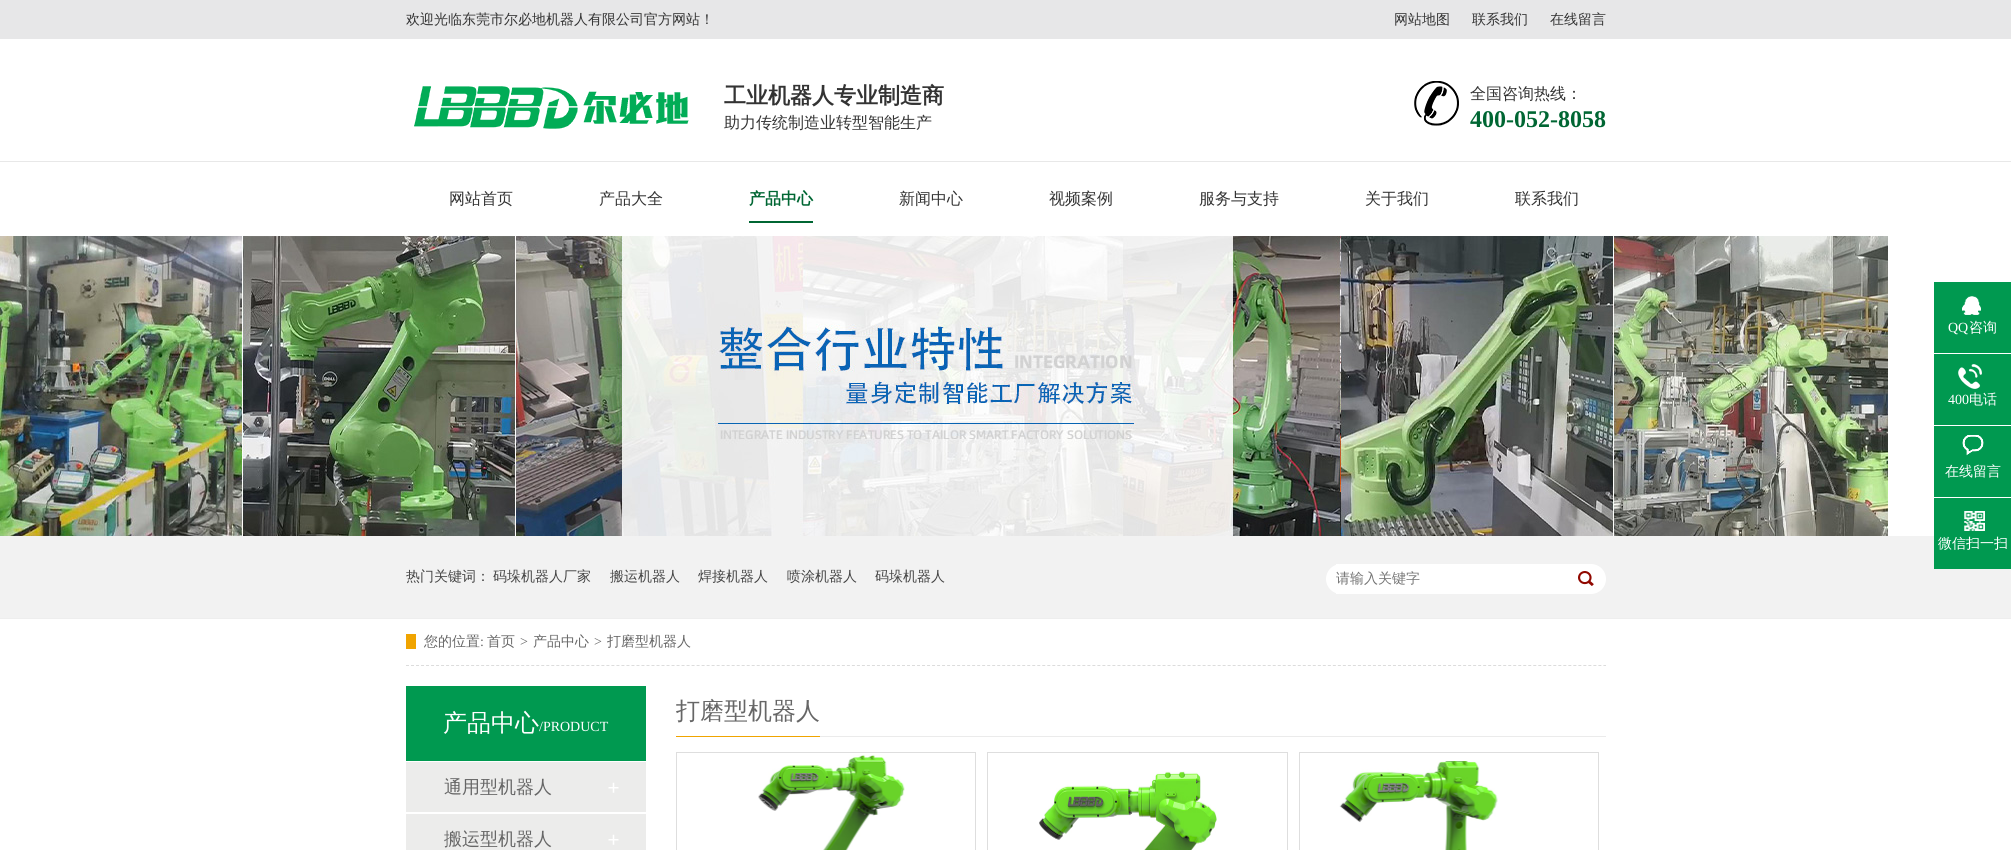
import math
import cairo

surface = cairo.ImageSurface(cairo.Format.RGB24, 2011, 850)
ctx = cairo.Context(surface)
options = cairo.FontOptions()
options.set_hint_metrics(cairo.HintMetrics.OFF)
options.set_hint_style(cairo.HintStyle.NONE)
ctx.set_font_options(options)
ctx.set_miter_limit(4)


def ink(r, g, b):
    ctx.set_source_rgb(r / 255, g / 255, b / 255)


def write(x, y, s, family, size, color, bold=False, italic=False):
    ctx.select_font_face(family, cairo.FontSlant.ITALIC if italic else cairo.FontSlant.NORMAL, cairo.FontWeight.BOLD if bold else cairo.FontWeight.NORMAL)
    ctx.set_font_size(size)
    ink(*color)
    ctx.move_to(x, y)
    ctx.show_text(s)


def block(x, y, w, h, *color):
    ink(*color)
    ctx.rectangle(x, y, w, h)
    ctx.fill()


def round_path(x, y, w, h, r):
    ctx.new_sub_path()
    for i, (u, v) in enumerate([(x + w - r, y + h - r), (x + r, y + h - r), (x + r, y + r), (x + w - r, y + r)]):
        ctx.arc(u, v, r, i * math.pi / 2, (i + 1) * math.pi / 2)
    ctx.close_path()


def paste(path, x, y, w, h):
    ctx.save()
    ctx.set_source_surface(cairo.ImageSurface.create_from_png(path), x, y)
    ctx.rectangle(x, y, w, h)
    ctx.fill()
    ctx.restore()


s1 = dict(family="WenQuanYi Zen Hei Medium", size=14, color=(51, 51, 51))
s2 = dict(family="WenQuanYi Zen Hei", size=22, color=(51, 51, 51), bold=True)
s3 = dict(family="WenQuanYi Zen Hei Medium", size=16, color=(51, 51, 51))
s4 = dict(family="Liberation Serif", size=24, color=(0, 102, 51), bold=True)
s5 = dict(family="WenQuanYi Zen Hei", size=16, color=(0, 102, 51), bold=True)
s6 = dict(family="Liberation Serif", size=14, color=(255, 255, 255))
s7 = dict(family="WenQuanYi Zen Hei Medium", size=14, color=(255, 255, 255))
s8 = dict(family="WenQuanYi Zen Hei Medium", size=14, color=(68, 68, 68))
s9 = dict(family="WenQuanYi Zen Hei Medium", size=14, color=(117, 117, 117))
s10 = dict(family="WenQuanYi Zen Hei Medium", size=14, color=(102, 102, 102))
s11 = dict(family="Liberation Serif", size=14, color=(102, 102, 102))
s12 = dict(family="WenQuanYi Zen Hei Medium", size=24, color=(255, 255, 255))
s13 = dict(family="WenQuanYi Zen Hei Medium", size=18, color=(102, 102, 102))
s14 = dict(family="WenQuanYi Zen Hei Medium", size=24, color=(102, 102, 102))

ink(255, 255, 255)
ctx.paint()
paste("pic1.png", 0, 0, 2011, 162)
write(406, 24, "欢迎光临东莞市尔必地机器人有限公司官方网站！", **s1)
write(1394, 24, "网站地图", **s1)
write(1472, 24, "联系我们", **s1)
write(1550, 24, "在线留言", **s1)
paste("pic2.png", 414, 86, 275, 43)
write(724, 103, "工业机器人专业制造商", **s2)
write(724, 128, "助力传统制造业转型智能生产", **s3)
paste("pic3.png", 1414, 81, 45, 45)
write(1470, 99, "全国咨询热线：", **s3)
write(1470, 127, "400-052-8058", **s4)
write(449, 204, "网站首页", **s3)
write(599, 204, "产品大全", **s3)
block(749, 221, 64, 2, 0, 102, 51)
write(749, 204, "产品中心", **s5)
write(899, 204, "新闻中心", **s3)
write(1049, 204, "视频案例", **s3)
write(1199, 204, "服务与支持", **s3)
write(1365, 204, "关于我们", **s3)
write(1515, 204, "联系我们", **s3)
paste("pic4.png", 0, 236, 1888, 300)
block(1934, 282, 77, 71, 0, 153, 80)
paste("pic5.png", 1962, 296, 19, 19)
write(1948, 332, "QQ", **s6)
write(1969, 332, "咨询", **s7)
block(1934, 354, 77, 71, 0, 153, 80)
paste("pic6.png", 1958, 364, 24, 25)
write(1948, 404, "400", **s6)
write(1969, 404, "电话", **s7)
block(1934, 426, 77, 71, 0, 153, 80)
paste("pic7.png", 1962, 435, 22, 21)
write(1945, 476, "在线留言", **s7)
block(0, 536, 2011, 82, 242, 242, 242)
block(1934, 498, 77, 71, 0, 153, 80)
paste("pic8.png", 1964, 511, 21, 20)
write(1938, 548, "微信扫一扫", **s7)
block(0, 618, 2011, 1, 238, 238, 238)
write(406, 581, "热门关键词：", **s8)
write(493, 581, "码垛机器人厂家", **s8)
write(610, 581, "搬运机器人", **s8)
write(698, 581, "焊接机器人", **s8)
write(787, 581, "喷涂机器人", **s8)
write(875, 581, "码垛机器人", **s8)
ink(255, 255, 255)
round_path(1326, 564, 280, 30, 15)
ctx.fill()
block(1336, 564, 3, 30, 255, 255, 255)
write(1336, 583, "请输入关键字", **s9)
paste("pic9.png", 1578, 571, 16, 15)
ctx.new_path()
ctx.move_to(406, 665.5)
ctx.line_to(1606, 665.5)
ink(220, 220, 220)
ctx.set_line_width(1)
ctx.set_dash([3, 2.01])
ctx.stroke()
write(424, 646, "您的位置", **s10)
block(406, 634, 10, 15, 240, 164, 0)
write(480, 646, ":", **s11)
write(487, 646, "首页", **s10)
write(520, 646, ">", **s11)
write(533, 646, "产品中心", **s10)
write(594, 646, ">", **s11)
write(607, 646, "打磨型机器人", **s10)
block(406, 686, 240, 75, 0, 153, 80)
write(443, 731, "产品中心", **s12)
write(539, 731, "/PRODUCT", **s6)
block(406, 762, 240, 50, 236, 236, 235)
paste("pic10.png", 608, 782, 11, 11)
write(444, 793, "通用型机器人", **s13)
block(406, 814, 240, 36, 236, 236, 235)
paste("pic10.png", 608, 834, 11, 11)
ctx.save()
ctx.rectangle(444, 814, 162, 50)
ctx.clip()
write(444, 845, "搬运型机器人", **s13)
ctx.restore()
block(820, 736, 786, 1, 235, 235, 235)
block(676, 736, 144, 1, 240, 164, 0)
write(676, 719, "打磨型机器人", **s14)
ctx.rectangle(676.5, 752.5, 299, 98)
ink(222, 222, 222)
ctx.set_dash([])
ctx.stroke()
paste("pic11.png", 758, 755, 147, 95)
ctx.rectangle(987.5, 752.5, 300, 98)
ctx.stroke()
paste("pic12.png", 1039, 771, 178, 79)
ctx.rectangle(1299.5, 752.5, 299, 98)
ctx.stroke()
paste("pic13.png", 1339, 761, 159, 89)
surface.write_to_png("screenshot.png")
